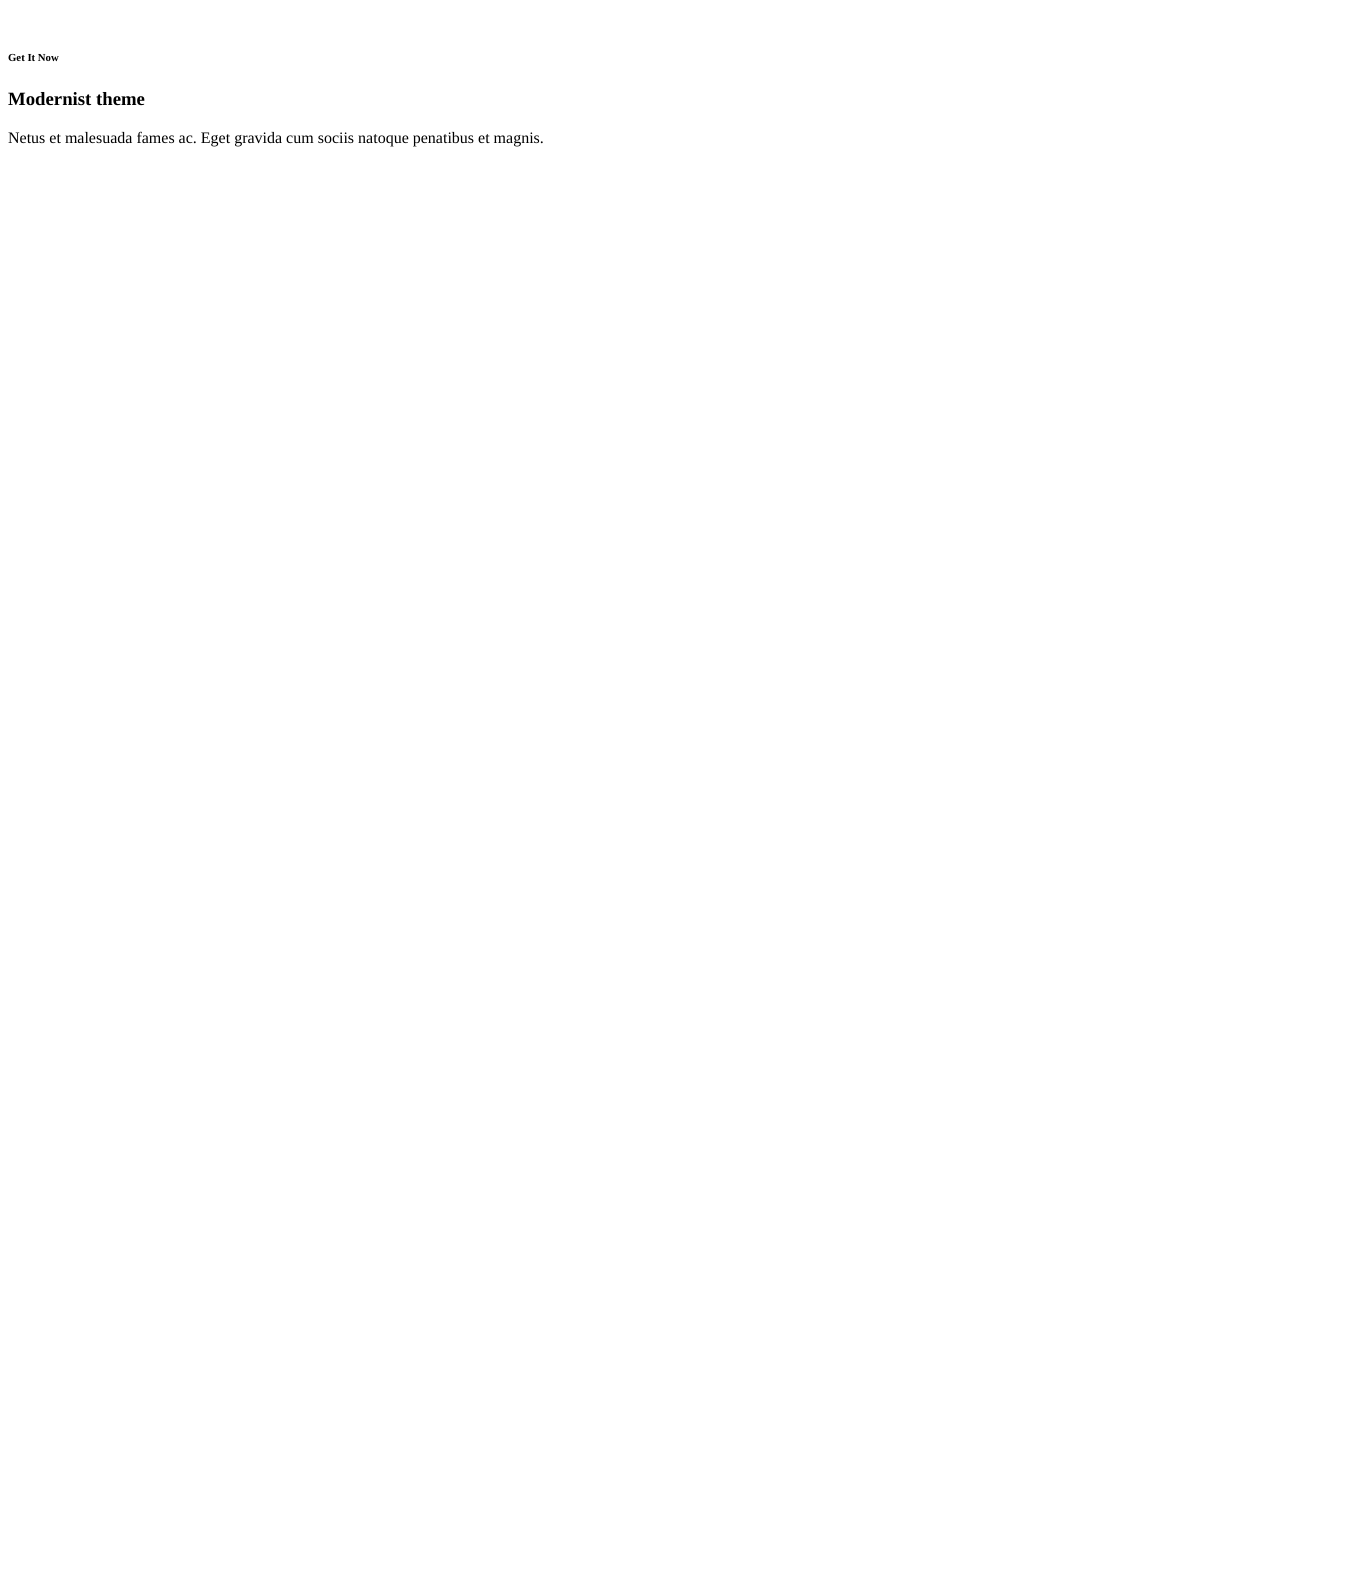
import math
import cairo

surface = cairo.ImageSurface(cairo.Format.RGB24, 1365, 1571)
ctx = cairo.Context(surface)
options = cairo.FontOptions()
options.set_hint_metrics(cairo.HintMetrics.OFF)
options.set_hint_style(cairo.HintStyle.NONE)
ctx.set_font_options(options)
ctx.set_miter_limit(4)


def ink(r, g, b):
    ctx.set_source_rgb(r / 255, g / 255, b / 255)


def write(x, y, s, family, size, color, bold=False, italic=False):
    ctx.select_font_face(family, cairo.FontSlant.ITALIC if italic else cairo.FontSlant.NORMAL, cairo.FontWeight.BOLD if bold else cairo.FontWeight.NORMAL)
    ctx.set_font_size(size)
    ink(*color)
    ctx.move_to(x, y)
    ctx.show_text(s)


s1 = dict(family="Liberation Serif", size=10.75, color=(0, 0, 0), bold=True)
s2 = dict(family="Liberation Serif", size=18.75, color=(0, 0, 0), bold=True)
s3 = dict(family="Liberation Serif", size=16, color=(0, 0, 0))

ink(255, 255, 255)
ctx.paint()
write(8, 61, "Get It Now", **s1)
write(8, 105, "Modernist theme", **s2)
write(8, 143, "Netus et malesuada fames ac. Eget gravida cum sociis natoque penatibus et magnis.", **s3)
surface.write_to_png("screenshot.png")
